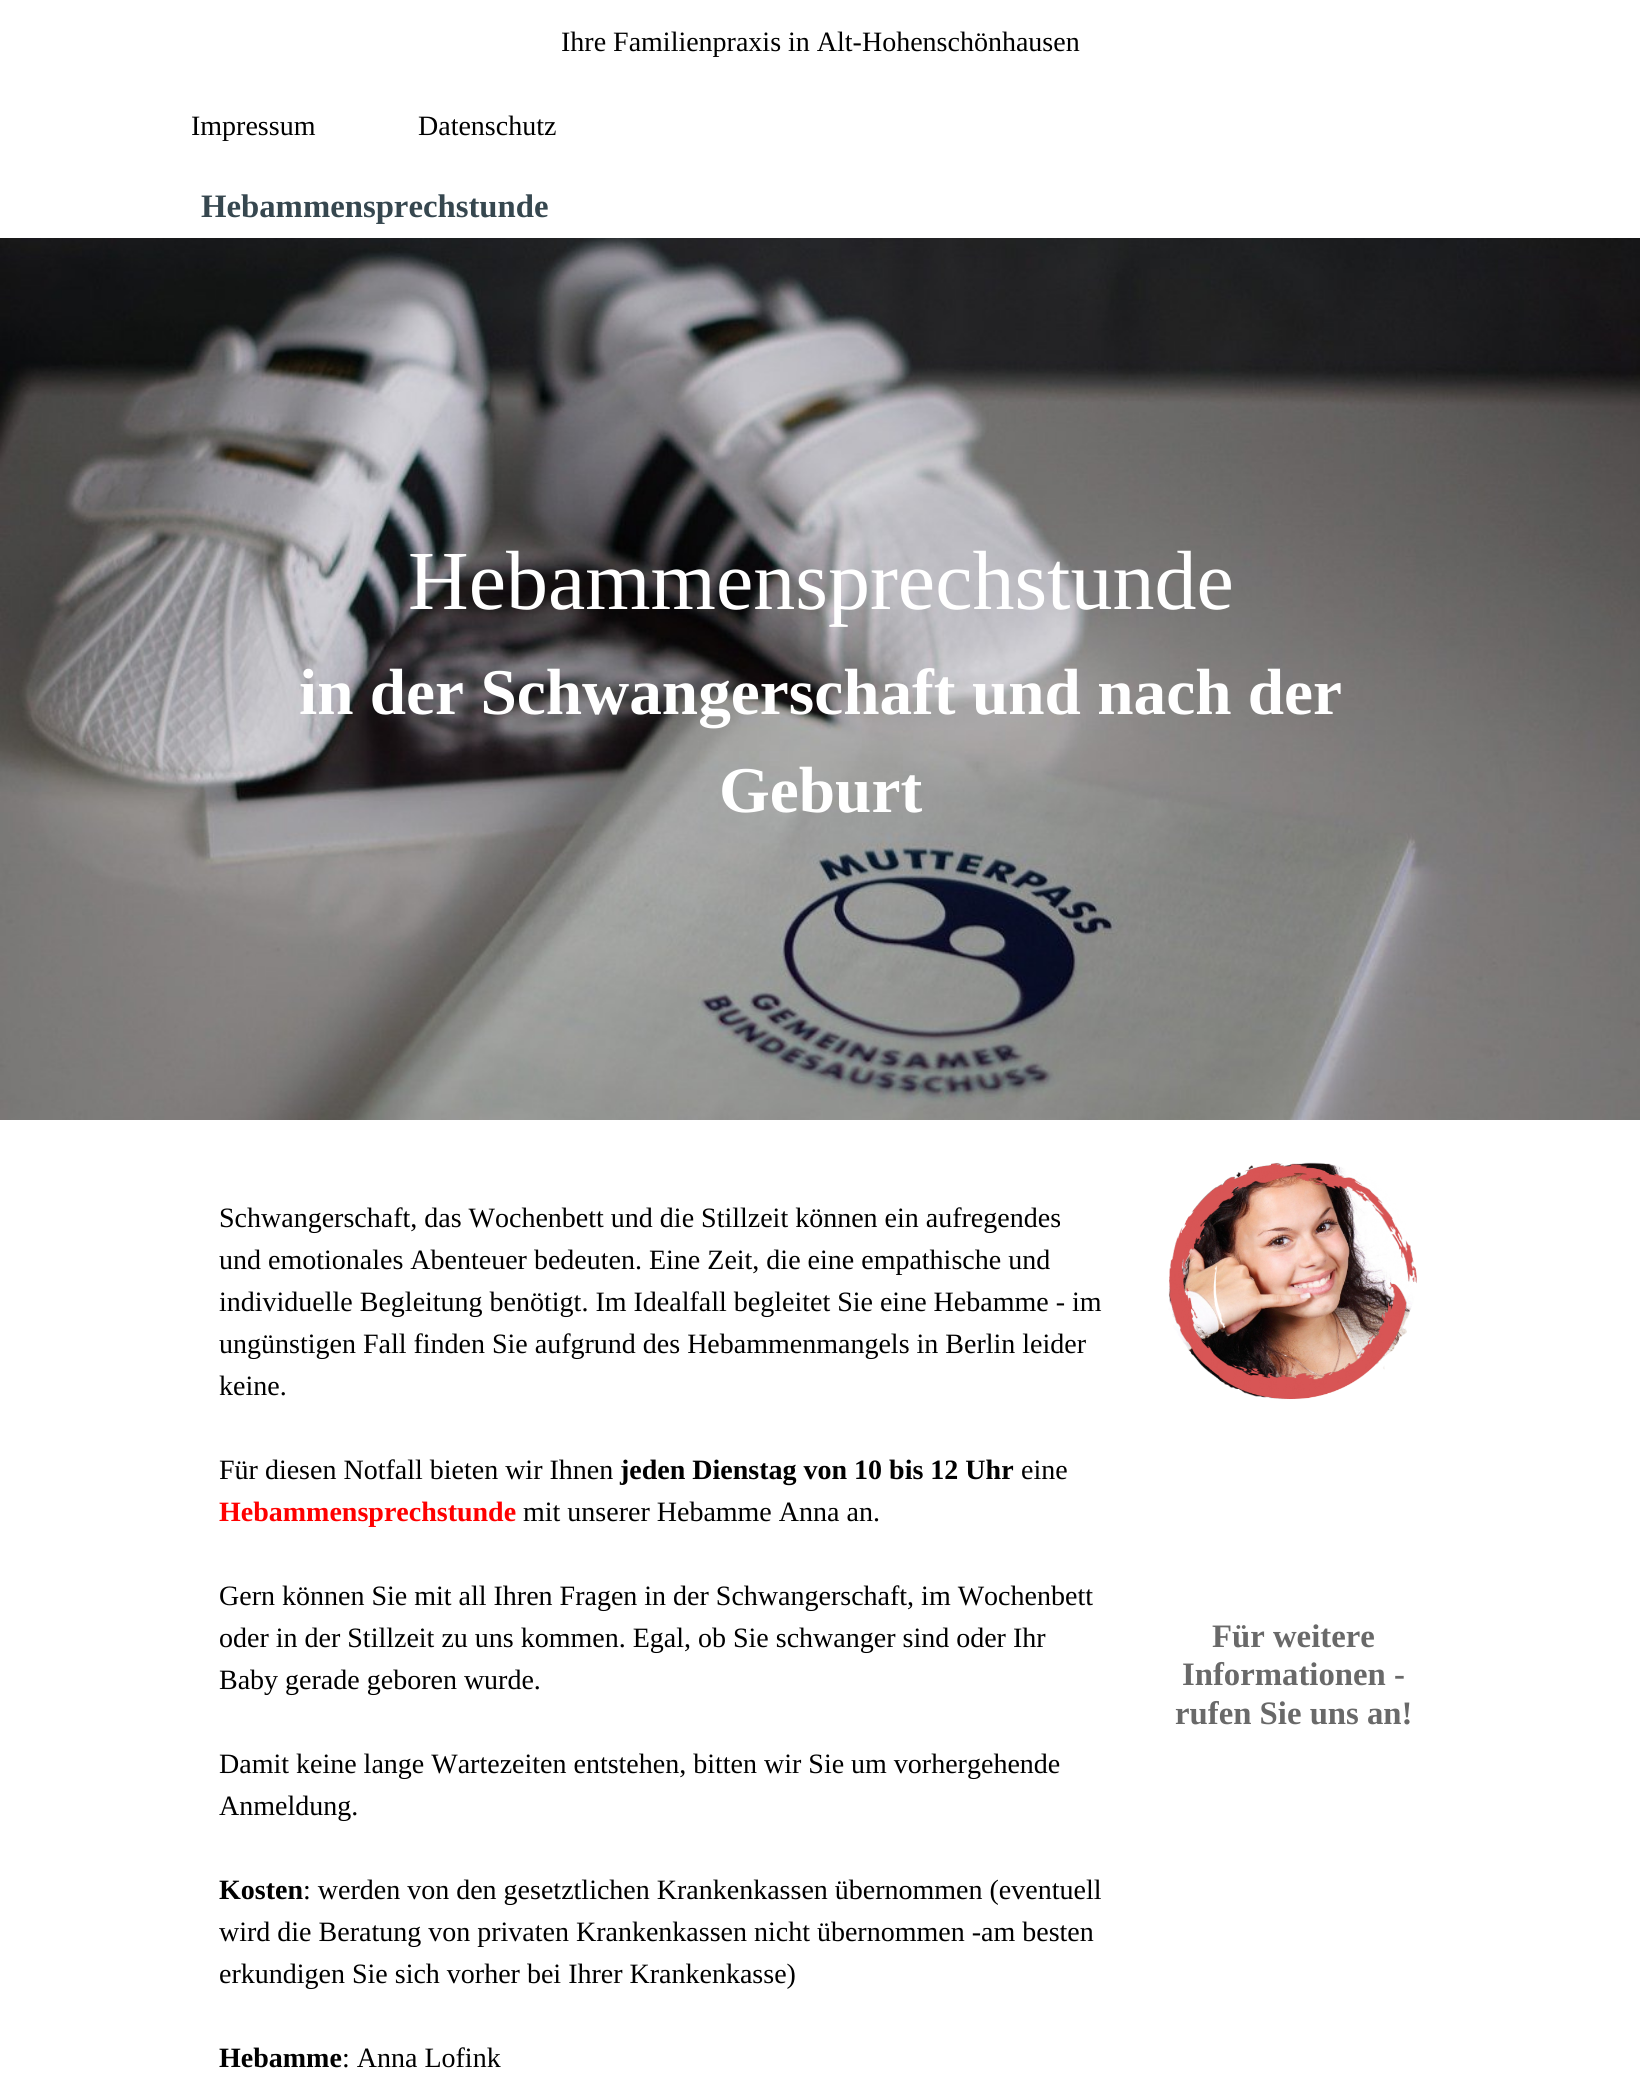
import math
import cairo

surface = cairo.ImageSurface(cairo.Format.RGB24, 1640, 2093)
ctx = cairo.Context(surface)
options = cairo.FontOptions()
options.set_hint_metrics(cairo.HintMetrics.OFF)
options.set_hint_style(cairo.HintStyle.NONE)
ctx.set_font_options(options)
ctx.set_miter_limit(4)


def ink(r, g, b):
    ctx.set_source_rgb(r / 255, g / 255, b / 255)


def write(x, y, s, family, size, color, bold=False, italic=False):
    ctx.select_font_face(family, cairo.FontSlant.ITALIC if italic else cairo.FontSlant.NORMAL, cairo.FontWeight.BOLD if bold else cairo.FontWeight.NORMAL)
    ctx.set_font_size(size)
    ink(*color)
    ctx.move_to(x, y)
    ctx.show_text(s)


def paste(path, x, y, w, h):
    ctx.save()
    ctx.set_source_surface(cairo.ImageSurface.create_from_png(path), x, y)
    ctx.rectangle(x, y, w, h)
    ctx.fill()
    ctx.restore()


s1 = dict(family="Liberation Serif", size=28, color=(0, 0, 0))
s2 = dict(family="Liberation Serif", size=32.75, color=(54, 71, 79), bold=True)
s3 = dict(family="Liberation Serif", size=84, color=(255, 255, 255))
s4 = dict(family="Liberation Serif", size=65.3, color=(255, 255, 255), bold=True)
s5 = dict(family="Liberation Serif", size=28, color=(0, 0, 0), bold=True)
s6 = dict(family="Liberation Serif", size=28, color=(255, 0, 0), bold=True)
s7 = dict(family="Liberation Serif", size=32.75, color=(105, 105, 105), bold=True)

ink(255, 255, 255)
ctx.paint()
write(561, 51, "Ihre Familienpraxis in Alt-Hohenschönhausen", **s1)
write(191, 135, "Impressum", **s1)
write(418, 135, "Datenschutz", **s1)
write(201, 217, "Hebammensprechstunde", **s2)
paste("pic1.png", 0, 238, 1640, 882)
write(408, 609, "Hebammensprechstunde", **s3)
write(299, 714, "in der Schwangerschaft und nach der", **s4)
write(719, 812, "Geburt", **s4)
write(219, 1227, "Schwangerschaft, das Wochenbett und die Stillzeit können ein aufregendes", **s1)
write(219, 1269, "und emotionales Abenteuer bedeuten. Eine Zeit, die eine empathische und", **s1)
write(219, 1311, "individuelle Begleitung benötigt. Im Idealfall begleitet Sie eine Hebamme - im", **s1)
write(219, 1353, "ungünstigen Fall finden Sie aufgrund des Hebammenmangels in Berlin leider", **s1)
write(219, 1395, "keine.", **s1)
write(219, 1479, "Für diesen Notfall bieten wir Ihnen", **s1)
write(620, 1479, "jeden Dienstag von 10 bis 12 Uhr", **s5)
write(1021, 1479, "eine", **s1)
write(219, 1521, "Hebammensprechstunde", **s6)
write(523, 1521, "mit unserer Hebamme Anna an.", **s1)
write(219, 1605, "Gern können Sie mit all Ihren Fragen in der Schwangerschaft, im Wochenbett", **s1)
write(219, 1647, "oder in der Stillzeit zu uns kommen. Egal, ob Sie schwanger sind oder Ihr", **s1)
write(219, 1689, "Baby gerade geboren wurde.", **s1)
write(219, 1773, "Damit keine lange Wartezeiten entstehen, bitten wir Sie um vorhergehende", **s1)
write(219, 1815, "Anmeldung.", **s1)
write(219, 1899, "Kosten", **s5)
write(303, 1899, ": werden von den gesetztlichen Krankenkassen übernommen (eventuell", **s1)
write(219, 1941, "wird die Beratung von privaten Krankenkassen nicht übernommen -am besten", **s1)
write(219, 1983, "erkundigen Sie sich vorher bei Ihrer Krankenkasse)", **s1)
write(219, 2067, "Hebamme", **s5)
write(342, 2067, ": Anna Lofink", **s1)
paste("pic2.png", 1168, 1162, 249, 238)
write(1212, 1647, "Für weitere", **s7)
write(1182, 1685, "Informationen -", **s7)
write(1175, 1724, "rufen Sie uns an!", **s7)
surface.write_to_png("screenshot.png")
